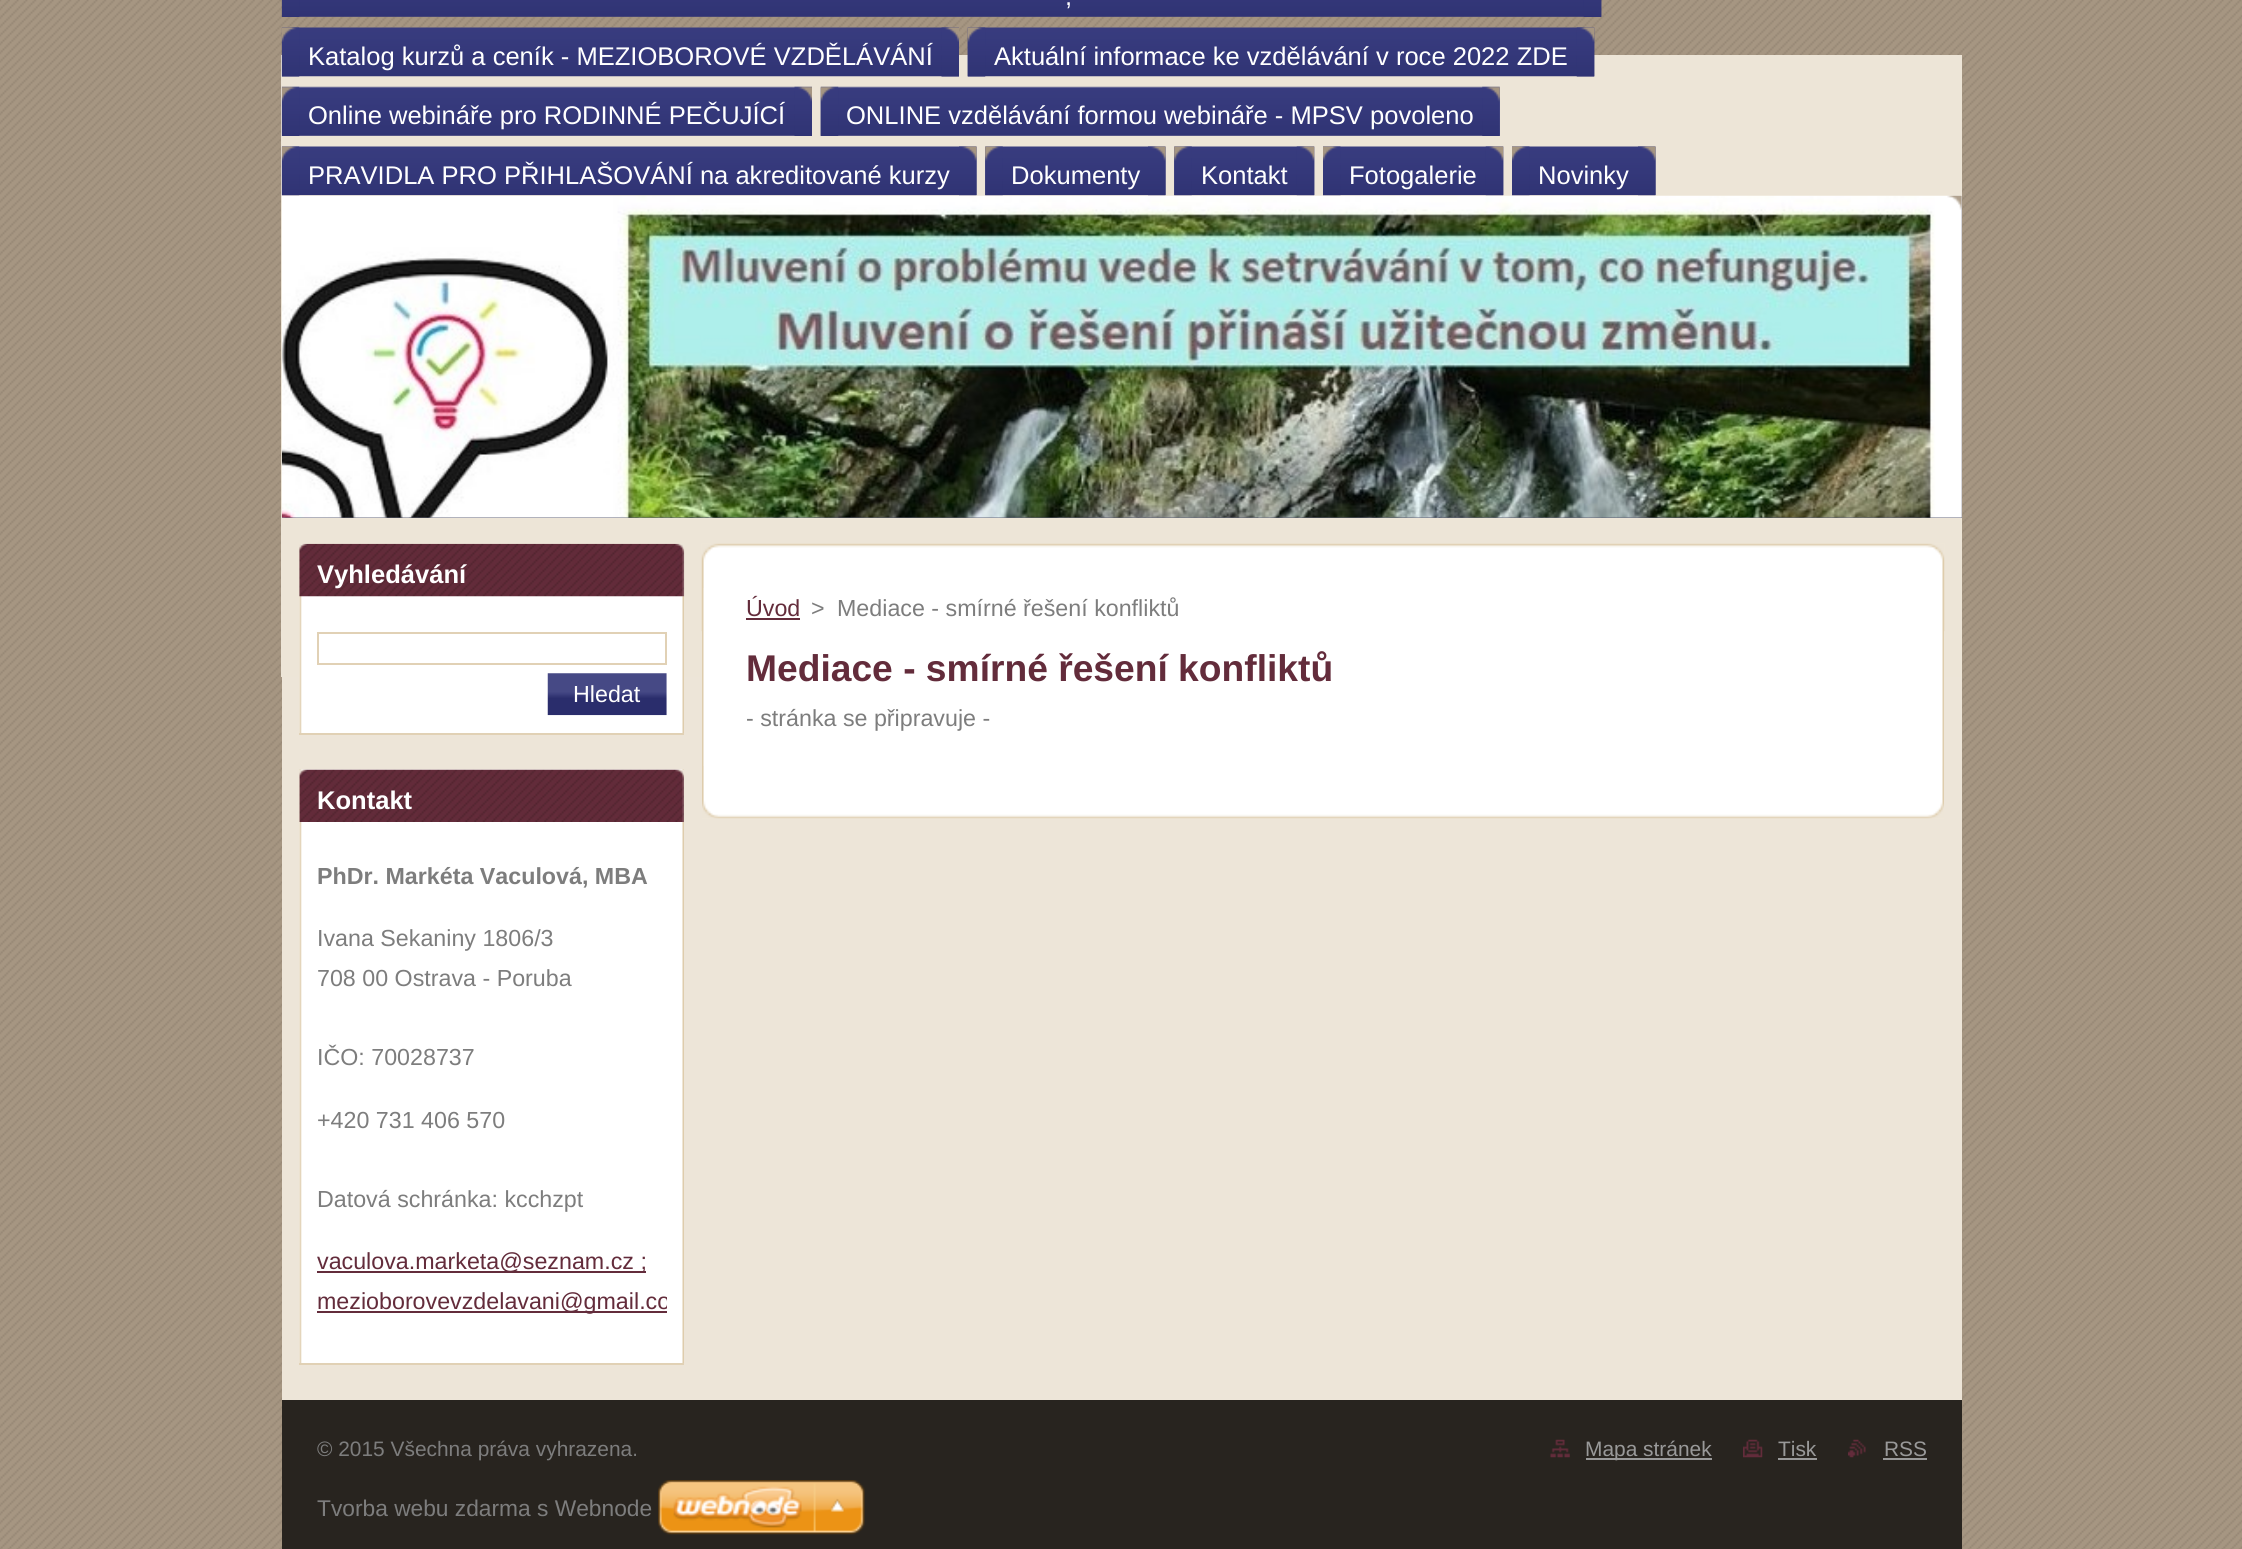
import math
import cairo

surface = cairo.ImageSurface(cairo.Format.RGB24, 2242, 1549)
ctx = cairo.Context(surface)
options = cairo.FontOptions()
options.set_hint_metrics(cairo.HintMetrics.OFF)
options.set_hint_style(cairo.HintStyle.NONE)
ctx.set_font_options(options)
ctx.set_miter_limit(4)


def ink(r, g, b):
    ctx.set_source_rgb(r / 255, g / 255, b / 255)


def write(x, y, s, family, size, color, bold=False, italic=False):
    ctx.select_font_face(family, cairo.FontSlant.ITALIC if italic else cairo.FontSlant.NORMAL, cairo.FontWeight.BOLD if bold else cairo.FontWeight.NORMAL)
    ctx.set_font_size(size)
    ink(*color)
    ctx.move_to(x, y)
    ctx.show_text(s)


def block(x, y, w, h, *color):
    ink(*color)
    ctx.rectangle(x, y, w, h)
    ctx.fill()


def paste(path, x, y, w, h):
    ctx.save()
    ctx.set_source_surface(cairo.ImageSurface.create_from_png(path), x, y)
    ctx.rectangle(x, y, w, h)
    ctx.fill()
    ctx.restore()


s1 = dict(family="Liberation Sans", size=25.55, color=(255, 255, 255))
s2 = dict(family="Liberation Sans", size=25.55, color=(255, 255, 255), bold=True)
s3 = dict(family="Liberation Sans", size=23.25, color=(255, 255, 255))
s4 = dict(family="Liberation Sans", size=23.25, color=(125, 125, 125), bold=True)
s5 = dict(family="Liberation Sans", size=23.25, color=(125, 125, 125))
s6 = dict(family="Liberation Sans", size=23.25, color=(99, 44, 59))
s7 = dict(family="Liberation Sans", size=37.2, color=(99, 44, 59), bold=True)
s8 = dict(family="Liberation Sans", size=20.9, color=(125, 125, 125))
s9 = dict(family="Liberation Sans", size=20.9, color=(153, 153, 153))
s10 = dict(family="Liberation Sans", size=22.75, color=(125, 125, 125))

ink(255, 255, 255)
ctx.paint()
paste("pic1.png", 0, 0, 2242, 1549)
block(281, 55, 1681, 622, 237, 229, 215)
paste("pic2.png", 281, 0, 1321, 17)
paste("pic3.png", 281, 0, 19, 17)
paste("pic4.png", 1583, 0, 19, 17)
write(1065, 5, ",", **s1)
paste("pic5.png", 281, 27, 678, 50)
paste("pic6.png", 281, 27, 19, 50)
paste("pic7.png", 941, 27, 18, 50)
write(308, 65, "Katalog kurzů a ceník - MEZIOBOROVÉ VZDĚLÁVÁNÍ", **s1)
paste("pic8.png", 967, 27, 628, 50)
paste("pic9.png", 967, 27, 19, 50)
paste("pic10.png", 1576, 27, 19, 50)
write(994, 65, "Aktuální informace ke vzdělávání v roce 2022 ZDE", **s1)
paste("pic11.png", 281, 86, 531, 50)
paste("pic12.png", 281, 86, 19, 50)
paste("pic13.png", 794, 86, 18, 50)
write(308, 124, "Online webináře pro RODINNÉ PEČUJÍCÍ", **s1)
paste("pic14.png", 820, 86, 680, 50)
paste("pic15.png", 820, 86, 19, 50)
paste("pic16.png", 1482, 86, 18, 50)
write(846, 124, "ONLINE vzdělávání formou webináře - MPSV povoleno", **s1)
paste("pic17.png", 281, 146, 696, 50)
paste("pic18.png", 281, 146, 19, 50)
paste("pic19.png", 959, 146, 18, 50)
write(308, 184, "PRAVIDLA PRO PŘIHLAŠOVÁNÍ na akreditované kurzy", **s1)
paste("pic20.png", 985, 146, 181, 50)
paste("pic21.png", 985, 146, 18, 50)
paste("pic19.png", 1148, 146, 18, 50)
write(1011, 184, "Dokumenty", **s1)
paste("pic22.png", 1174, 146, 141, 50)
paste("pic21.png", 1174, 146, 18, 50)
paste("pic23.png", 1296, 146, 19, 50)
write(1201, 184, "Kontakt", **s1)
paste("pic24.png", 1323, 146, 181, 50)
paste("pic25.png", 1323, 146, 18, 50)
paste("pic23.png", 1485, 146, 19, 50)
write(1349, 184, "Fotogalerie", **s1)
paste("pic26.png", 1512, 146, 144, 50)
paste("pic25.png", 1512, 146, 18, 50)
paste("pic19.png", 1638, 146, 18, 50)
write(1538, 184, "Novinky", **s1)
block(282, 196, 1680, 322, 99, 100, 121)
paste("pic27.png", 281, 195, 1681, 323)
paste("pic28.png", 1947, 195, 15, 15)
block(282, 677, 1680, 723, 237, 229, 216)
block(299, 544, 1, 189, 255, 255, 255)
paste("pic29.png", 299, 544, 385, 189)
block(299, 733, 385, 2, 225, 209, 181)
paste("pic30.png", 299, 543, 386, 54)
write(317, 583, "Vyhledávání", **s2)
ctx.rectangle(318, 633, 348, 31)
ink(225, 209, 181)
ctx.stroke()
paste("pic31.png", 547, 673, 120, 43)
write(573, 702, "Hledat", **s3)
block(299, 770, 1, 593, 255, 255, 255)
paste("pic32.png", 299, 769, 385, 594)
block(299, 1363, 385, 2, 225, 209, 181)
paste("pic33.png", 299, 769, 385, 53)
write(317, 809, "Kontakt", **s2)
write(317, 884, "PhDr. Markéta Vaculová, MBA", **s4)
write(317, 946, "Ivana Sekaniny 1806/3", **s5)
write(317, 986, "708 00 Ostrava - Poruba", **s5)
write(317, 1065, "IČO: 70028737", **s5)
write(317, 1128, "+420 731 406 570", **s5)
write(317, 1207, "Datová schránka: kcchzpt", **s5)
block(317, 1271, 329, 2, 99, 44, 59)
write(317, 1269, "vaculova.marketa@seznam.cz ;", **s6)
block(317, 1311, 350, 2, 99, 44, 59)
ctx.save()
ctx.rectangle(317, 858, 350, 488)
ctx.clip()
write(317, 1309, "mezioborovevzdelavani@gmail.co", **s6)
ctx.restore()
paste("pic34.png", 701, 543, 1244, 89)
paste("pic35.png", 702, 766, 1242, 53)
paste("pic36.png", 702, 588, 1242, 178)
write(746, 616, "Úvod", **s6)
block(746, 618, 54, 2, 99, 44, 59)
write(811, 616, ">", **s5)
write(837, 616, "Mediace - smírné řešení konfliktů", **s5)
write(746, 681, "Mediace - smírné řešení konfliktů", **s7)
write(746, 726, "- stránka se připravuje -", **s5)
block(282, 1400, 1680, 149, 40, 36, 31)
write(317, 1456, "© 2015 Všechna práva vyhrazena.", **s8)
paste("pic37.png", 1550, 1439, 20, 19)
block(1586, 1458, 126, 2, 153, 153, 153)
write(1585, 1456, "Mapa stránek", **s9)
paste("pic38.png", 1743, 1439, 20, 19)
write(1778, 1456, "Tisk", **s9)
block(1778, 1458, 39, 2, 153, 153, 153)
paste("pic39.png", 1848, 1439, 18, 19)
write(1884, 1456, "RSS", **s9)
block(1883, 1458, 44, 2, 153, 153, 153)
write(317, 1516, "Tvorba webu zdarma s Webnode", **s10)
paste("pic40.png", 658, 1480, 207, 55)
surface.write_to_png("screenshot.png")
